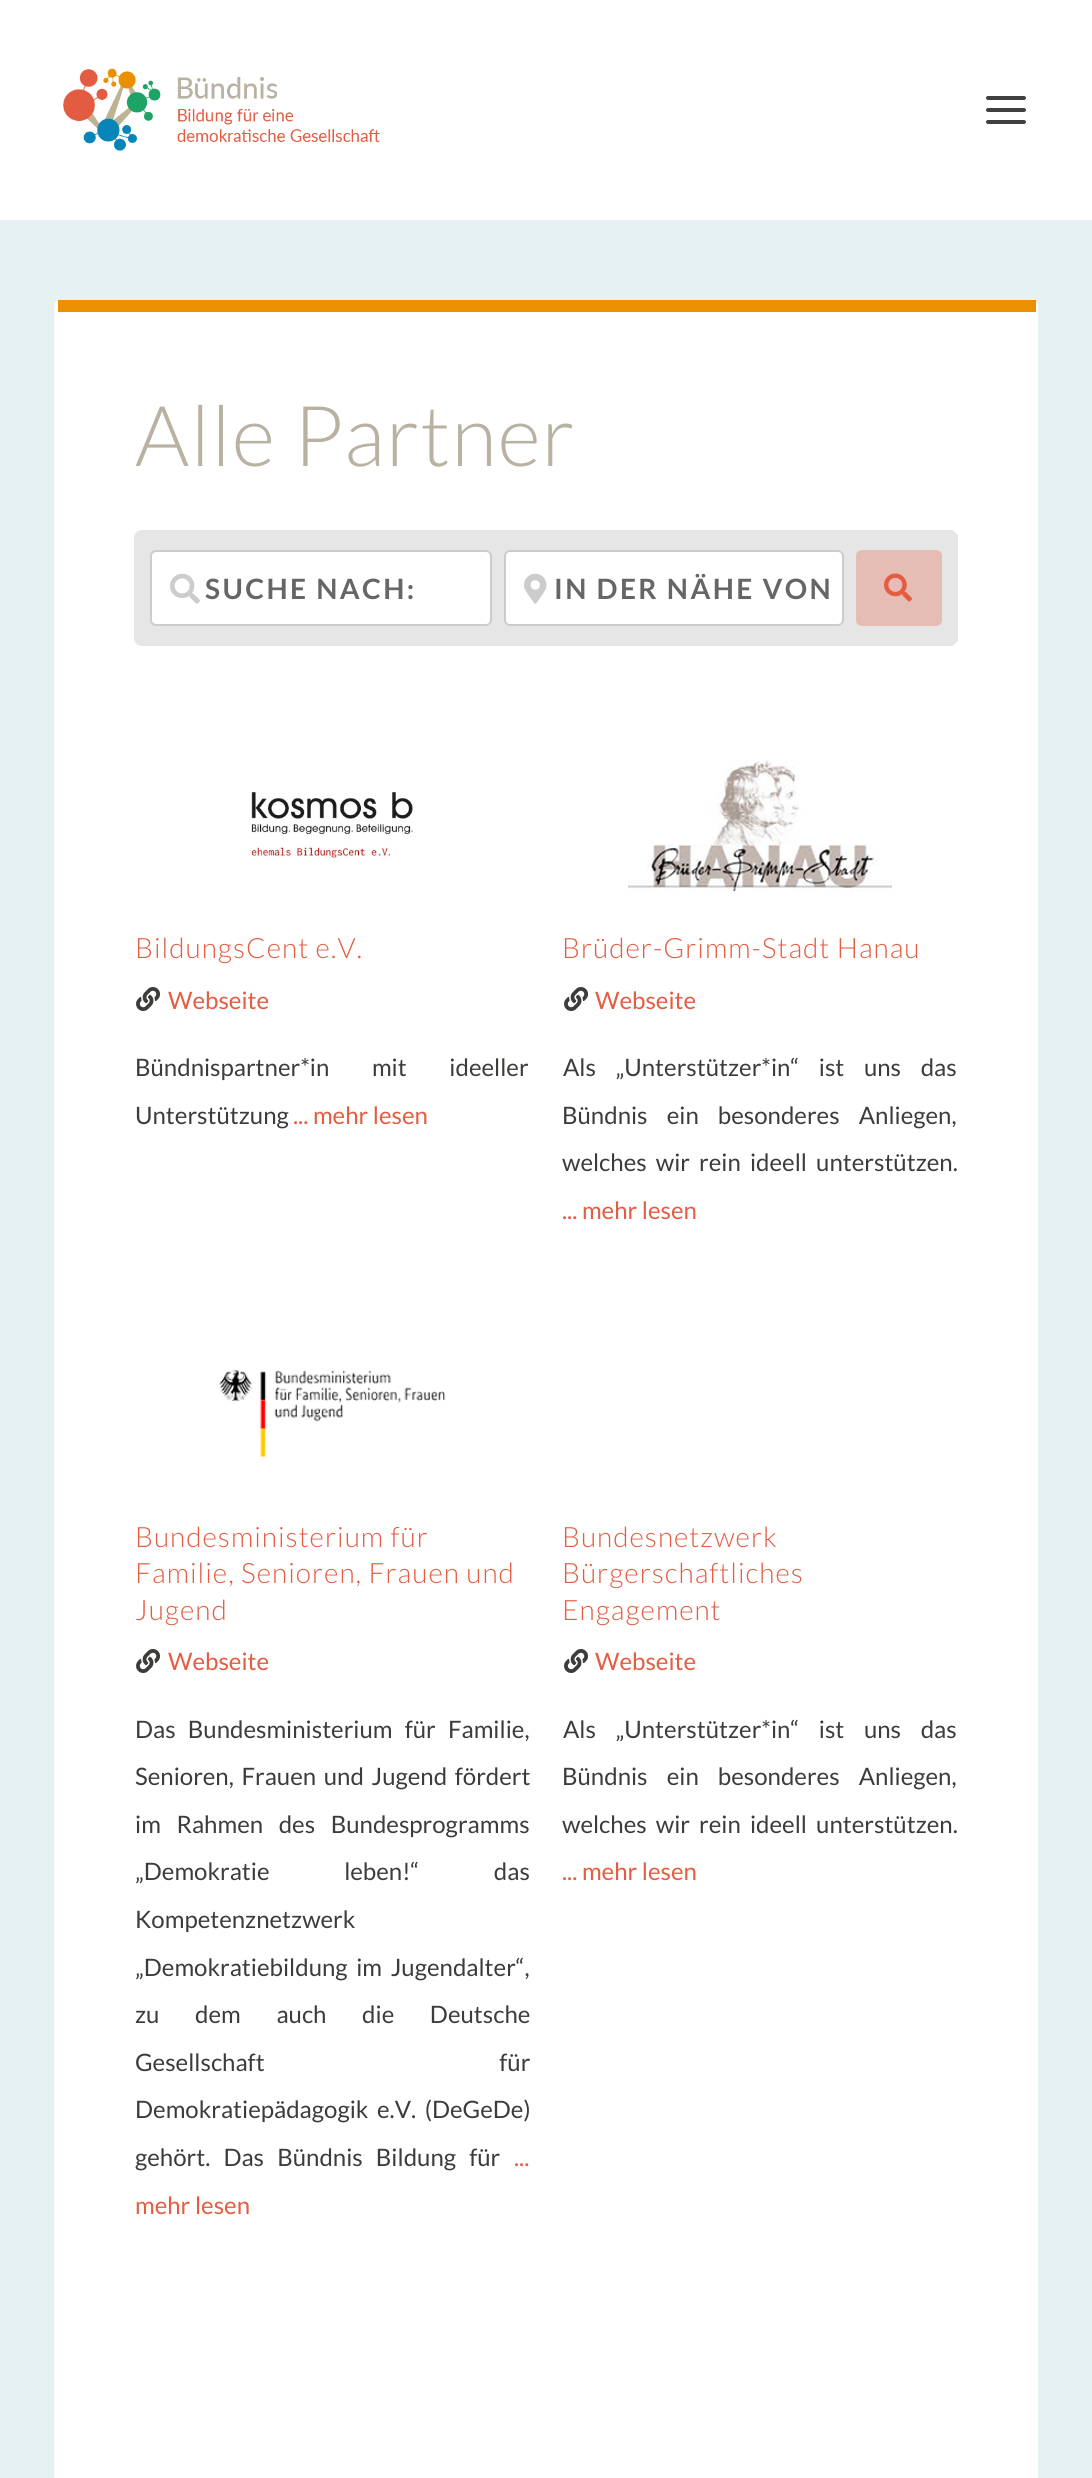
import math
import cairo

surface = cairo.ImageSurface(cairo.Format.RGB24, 1092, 2478)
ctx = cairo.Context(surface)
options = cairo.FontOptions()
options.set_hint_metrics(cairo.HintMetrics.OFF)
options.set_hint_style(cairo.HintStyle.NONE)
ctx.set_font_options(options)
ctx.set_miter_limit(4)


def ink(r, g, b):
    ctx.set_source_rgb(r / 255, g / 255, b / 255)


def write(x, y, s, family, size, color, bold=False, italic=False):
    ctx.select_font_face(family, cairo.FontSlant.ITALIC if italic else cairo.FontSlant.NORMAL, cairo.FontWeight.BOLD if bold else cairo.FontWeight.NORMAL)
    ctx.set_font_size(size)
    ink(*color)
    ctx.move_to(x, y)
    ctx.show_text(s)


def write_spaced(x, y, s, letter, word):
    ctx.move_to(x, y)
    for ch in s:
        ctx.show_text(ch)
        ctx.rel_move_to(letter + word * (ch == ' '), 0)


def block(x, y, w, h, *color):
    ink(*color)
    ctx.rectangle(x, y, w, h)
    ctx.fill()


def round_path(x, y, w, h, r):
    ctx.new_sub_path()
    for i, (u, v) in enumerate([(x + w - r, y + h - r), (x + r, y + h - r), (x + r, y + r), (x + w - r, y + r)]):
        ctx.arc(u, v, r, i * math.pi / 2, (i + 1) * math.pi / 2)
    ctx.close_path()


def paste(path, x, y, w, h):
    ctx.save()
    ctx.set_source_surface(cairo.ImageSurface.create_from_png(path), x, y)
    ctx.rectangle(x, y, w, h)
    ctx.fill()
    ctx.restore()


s1 = dict(family="Lato", size=24, color=(228, 92, 65))
s2 = dict(family="Lato", size=24, color=(60, 60, 59))

ink(230, 242, 242)
ctx.paint()
block(0, 0, 1092, 220, 255, 255, 255)
paste("pic1.png", 63, 68, 317, 83)
ink(64, 64, 64)
round_path(986, 96, 40, 4, 2)
ctx.fill()
round_path(986, 108, 40, 4, 2)
ctx.fill()
round_path(986, 120, 40, 4, 2)
ctx.fill()
ink(255, 255, 255)
round_path(54, 300, 984, 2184, 6)
ctx.fill()
block(58, 300, 978, 12, 236, 144, 0)
ctx.select_font_face("Lato Light")
ctx.set_font_size(84)
ink(185, 178, 162)
write_spaced(135, 466, "Alle Partner", 1, 0)
ink(230, 230, 230)
round_path(134, 530, 824, 116, 8)
ctx.fill()
ink(255, 255, 255)
round_path(151, 551, 340, 74, 5)
ctx.fill_preserve()
ink(204, 204, 204)
ctx.stroke()
paste("pic2.png", 170, 573, 30, 31)
ctx.select_font_face("Lato", cairo.FontSlant.NORMAL, cairo.FontWeight.BOLD)
ctx.set_font_size(28)
ink(102, 102, 102)
write_spaced(205, 599, "SUCHE NACH:", 2.4, 0)
ink(255, 255, 255)
round_path(505, 551, 338, 74, 5)
ctx.fill_preserve()
ink(204, 204, 204)
ctx.stroke()
paste("pic3.png", 524, 573, 23, 31)
ink(102, 102, 102)
write_spaced(554, 599, "IN DER NÄHE VON", 2.4, 0)
ink(229, 189, 181)
round_path(856, 550, 86, 76, 6)
ctx.fill()
paste("pic4.png", 884, 573, 28, 29)
paste("pic5.png", 251, 792, 162, 66)
ctx.select_font_face("Lato Light")
ink(228, 92, 65)
write_spaced(135, 958, "BildungsCent e.V.", 1, 0)
paste("pic6.png", 136, 987, 24, 24)
write(168, 1009, "Webseite", **s1)
ink(60, 60, 59)
write_spaced(135, 1076, "Bündnispartner*in mit ideeller", 0, 38)
write(135, 1124, "Unterstützung", **s2)
write(293, 1124, "... mehr lesen", **s1)
paste("pic7.png", 628, 760, 264, 132)
ctx.select_font_face("Lato Light")
ctx.set_font_size(28)
write_spaced(562, 958, "Brüder-Grimm-Stadt Hanau", 1, 0)
paste("pic6.png", 564, 987, 24, 24)
write(595, 1009, "Webseite", **s1)
ink(60, 60, 59)
write_spaced(563, 1076, "Als „Unterstützer*in“ ist uns das", 0, 15)
write_spaced(562, 1124, "Bündnis ein besonderes Anliegen,", 0, 14.5)
write_spaced(562, 1171, "welches wir rein ideell unterstützen.", 0, 4.5)
write(562, 1219, "... mehr lesen", **s1)
paste("pic8.png", 219, 1370, 227, 88)
ctx.select_font_face("Lato Light")
ctx.set_font_size(28)
write_spaced(135, 1547, "Bundesministerium für", 1, 0)
write_spaced(135, 1583, "Familie, Senioren, Frauen und", 1, 0)
write_spaced(135, 1620, "Jugend", 1, 0)
paste("pic6.png", 136, 1649, 24, 24)
write(168, 1670, "Webseite", **s1)
ink(60, 60, 59)
write_spaced(135, 1738, "Das Bundesministerium für Familie,", 0, 7.5)
write_spaced(135, 1785, "Senioren, Frauen und Jugend fördert", 0, 3)
write_spaced(135, 1833, "im Rahmen des Bundesprogramms", 0, 11)
write_spaced(135, 1880, "„Demokratie leben!“ das", 0, 70)
write(135, 1928, "Kompetenznetzwerk", **s2)
write_spaced(135, 1976, "„Demokratiebildung im Jugendalter“,", 0, 4)
write_spaced(135, 2023, "zu dem auch die Deutsche", 0, 31)
write_spaced(135, 2071, "Gesellschaft für", 0, 230)
write_spaced(135, 2118, "Demokratiepädagogik e.V. (DeGeDe)", 0, 4)
write_spaced(135, 2166, "gehört. Das Bündnis Bildung für", 0, 8.5)
write(514, 2166, "...", **s1)
write(135, 2214, "mehr lesen", **s1)
ctx.select_font_face("Lato Light")
ctx.set_font_size(28)
write_spaced(562, 1547, "Bundesnetzwerk", 1, 0)
write_spaced(562, 1583, "Bürgerschaftliches", 1, 0)
write_spaced(562, 1620, "Engagement", 1, 0)
paste("pic6.png", 564, 1649, 24, 24)
write(595, 1670, "Webseite", **s1)
ink(60, 60, 59)
write_spaced(563, 1738, "Als „Unterstützer*in“ ist uns das", 0, 15)
write_spaced(562, 1785, "Bündnis ein besonderes Anliegen,", 0, 14.5)
write_spaced(562, 1833, "welches wir rein ideell unterstützen.", 0, 4.5)
write(562, 1880, "... mehr lesen", **s1)
surface.write_to_png("screenshot.png")
